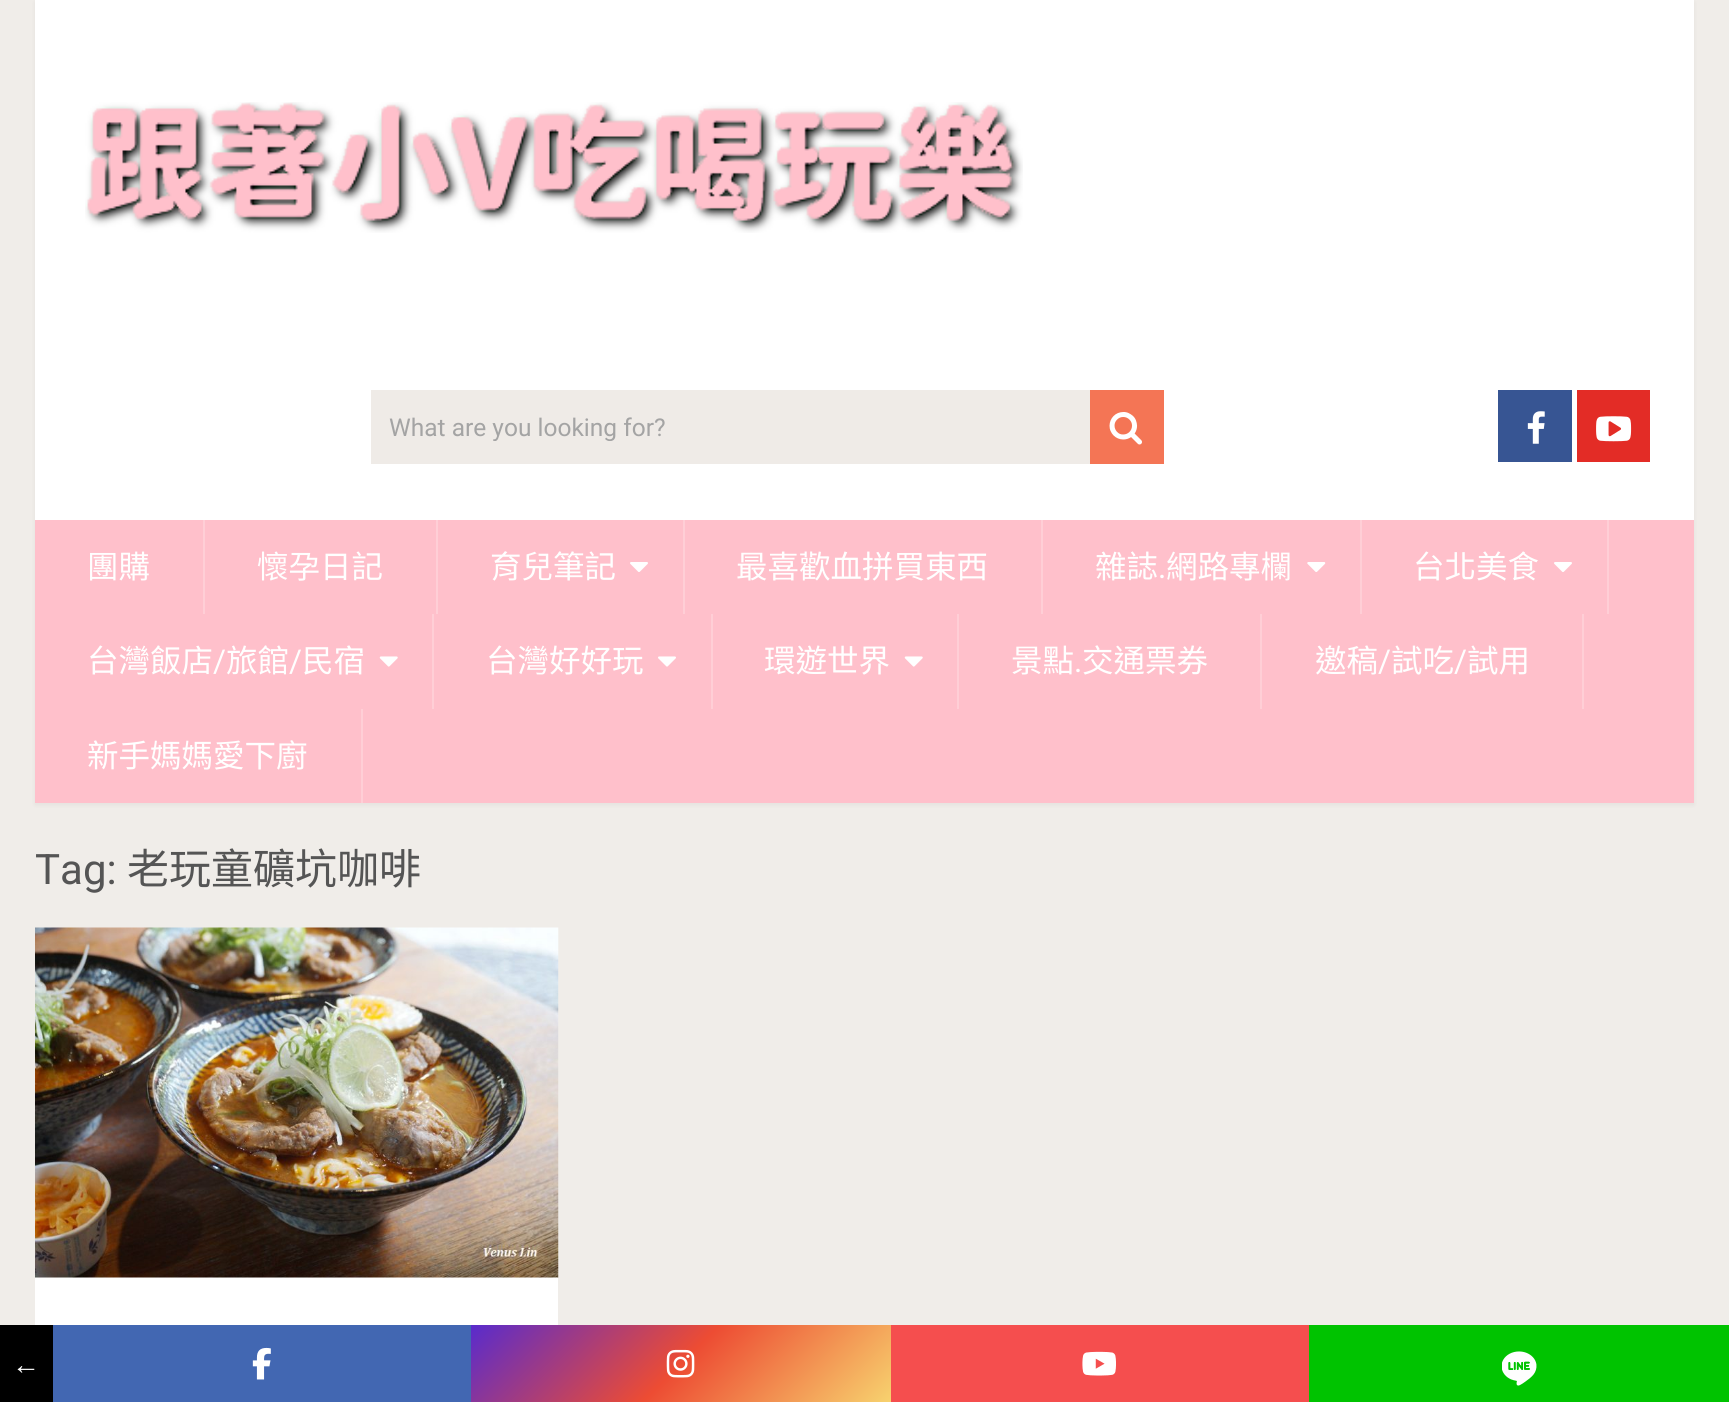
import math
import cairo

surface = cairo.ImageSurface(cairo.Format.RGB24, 1729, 1402)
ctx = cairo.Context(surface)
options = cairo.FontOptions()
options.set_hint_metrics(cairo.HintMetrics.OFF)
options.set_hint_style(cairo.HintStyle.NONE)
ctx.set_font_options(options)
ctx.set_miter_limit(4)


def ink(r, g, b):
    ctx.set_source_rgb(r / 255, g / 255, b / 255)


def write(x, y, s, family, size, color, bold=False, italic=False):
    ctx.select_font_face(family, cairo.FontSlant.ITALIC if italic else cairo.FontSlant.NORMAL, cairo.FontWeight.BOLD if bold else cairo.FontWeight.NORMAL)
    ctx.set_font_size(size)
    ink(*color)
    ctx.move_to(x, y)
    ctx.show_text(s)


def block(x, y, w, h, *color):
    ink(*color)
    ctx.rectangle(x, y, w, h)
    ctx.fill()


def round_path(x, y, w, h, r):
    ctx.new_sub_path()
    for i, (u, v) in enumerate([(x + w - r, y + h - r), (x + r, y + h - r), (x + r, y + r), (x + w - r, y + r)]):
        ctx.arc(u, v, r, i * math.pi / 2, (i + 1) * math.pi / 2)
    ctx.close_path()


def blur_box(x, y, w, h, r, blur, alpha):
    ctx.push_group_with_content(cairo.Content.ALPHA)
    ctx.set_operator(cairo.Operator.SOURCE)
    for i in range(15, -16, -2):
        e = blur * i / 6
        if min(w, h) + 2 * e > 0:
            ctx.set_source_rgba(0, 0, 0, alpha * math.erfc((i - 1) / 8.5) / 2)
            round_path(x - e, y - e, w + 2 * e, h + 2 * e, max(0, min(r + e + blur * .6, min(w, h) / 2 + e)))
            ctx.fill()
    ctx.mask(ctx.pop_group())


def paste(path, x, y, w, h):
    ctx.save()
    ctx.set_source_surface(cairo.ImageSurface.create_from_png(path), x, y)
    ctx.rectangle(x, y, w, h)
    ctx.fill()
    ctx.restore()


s1 = dict(family="Roboto", size=24.5, color=(164, 164, 164))
s2 = dict(family="Noto Sans CJK TC", size=31.5, color=(255, 255, 255))
s3 = dict(family="Roboto", size=31.5, color=(255, 255, 255))
s4 = dict(family="Roboto", size=42, color=(85, 85, 85))
s5 = dict(family="Noto Sans CJK TC", size=42, color=(85, 85, 85))
s6 = dict(family="Liberation Serif", size=28, color=(255, 255, 255))

ink(240, 237, 233)
ctx.paint()
ink(0, 0, 0)
blur_box(35, 2, 1659, 803, 0, 2, 0.05)
block(35, 0, 1659, 520, 255, 255, 255)
paste("pic1.png", 85, 102, 938, 131)
block(371, 390, 719, 74, 239, 235, 231)
ctx.save()
ctx.rectangle(373, 413, 789, 28)
ctx.clip()
write(389, 436, "What are you looking for?", **s1)
ctx.restore()
block(1090, 390, 74, 74, 244, 117, 85)
paste("pic2.png", 1109, 412, 33, 33)
block(1498, 390, 74, 72, 55, 85, 147)
paste("pic3.png", 1527, 411, 18, 33)
block(1577, 390, 73, 72, 227, 44, 38)
paste("pic4.png", 1596, 416, 36, 26)
block(35, 520, 1659, 283, 255, 192, 203)
block(203, 520, 2, 94, 255, 206, 214)
write(87, 578, "團購", **s2)
block(436, 520, 2, 94, 255, 206, 214)
write(257, 578, "懷孕日記", **s2)
block(683, 520, 2, 94, 255, 206, 214)
write(490, 578, "育兒筆記", **s2)
paste("pic5.png", 630, 562, 18, 10)
block(1041, 520, 2, 94, 255, 206, 214)
write(736, 578, "最喜歡血拼買東西", **s2)
block(1360, 520, 2, 94, 255, 206, 214)
write(1095, 578, "雜誌", **s2)
write(1166, 578, "網路專欄", **s2)
paste("pic6.png", 1307, 562, 19, 10)
write(1158, 578, ".", **s3)
block(1607, 520, 2, 94, 255, 206, 214)
write(1413, 578, "台北美食", **s2)
paste("pic5.png", 1554, 562, 18, 10)
block(432, 614, 2, 95, 255, 206, 214)
write(87, 672, "台灣飯店", **s2)
write(213, 672, "/", **s3)
write(226, 672, "旅館", **s2)
write(289, 672, "/", **s3)
write(302, 672, "民宿", **s2)
paste("pic7.png", 379, 656, 19, 11)
block(711, 614, 2, 95, 255, 206, 214)
write(486, 672, "台灣好好玩", **s2)
paste("pic8.png", 658, 656, 18, 11)
block(957, 614, 2, 95, 255, 206, 214)
write(764, 672, "環遊世界", **s2)
paste("pic7.png", 904, 656, 19, 11)
block(1260, 614, 2, 95, 255, 206, 214)
write(1011, 672, "景點", **s2)
write(1074, 672, ".", **s3)
write(1082, 672, "交通票券", **s2)
block(1582, 614, 2, 95, 255, 206, 214)
write(1315, 672, "邀稿", **s2)
write(1378, 672, "/", **s3)
write(1391, 672, "試吃", **s2)
write(1454, 672, "/", **s3)
write(1467, 672, "試用", **s2)
block(361, 709, 2, 94, 255, 206, 214)
write(87, 767, "新手媽媽愛下廚", **s2)
write(35, 884, "Tag:", **s4)
write(127, 884, "老玩童礦坑咖啡", **s5)
block(35, 1277, 523, 48, 255, 255, 255)
paste("pic9.png", 35, 927, 524, 351)
block(0, 1325, 53, 77, 0, 0, 0)
write(12, 1374, "←", **s6)
block(53, 1325, 418, 77, 66, 103, 178)
paste("pic10.png", 252, 1347, 19, 33)
gradient = cairo.LinearGradient(556, 1239, 805, 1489)
gradient.add_color_stop_rgba(0, 0.345, 0.169, 0.804, 1)
gradient.add_color_stop_rgba(0.5, 0.929, 0.298, 0.2, 1)
gradient.add_color_stop_rgba(1, 0.969, 0.827, 0.435, 1)
ctx.set_source(gradient)
ctx.rectangle(471, 1325, 420, 77)
ctx.fill()
paste("pic11.png", 666, 1349, 29, 29)
block(891, 1325, 418, 77, 245, 78, 78)
paste("pic12.png", 1082, 1351, 34, 25)
block(1309, 1325, 420, 77, 0, 195, 0)
paste("pic13.png", 1502, 1351, 35, 35)
surface.write_to_png("screenshot.png")
